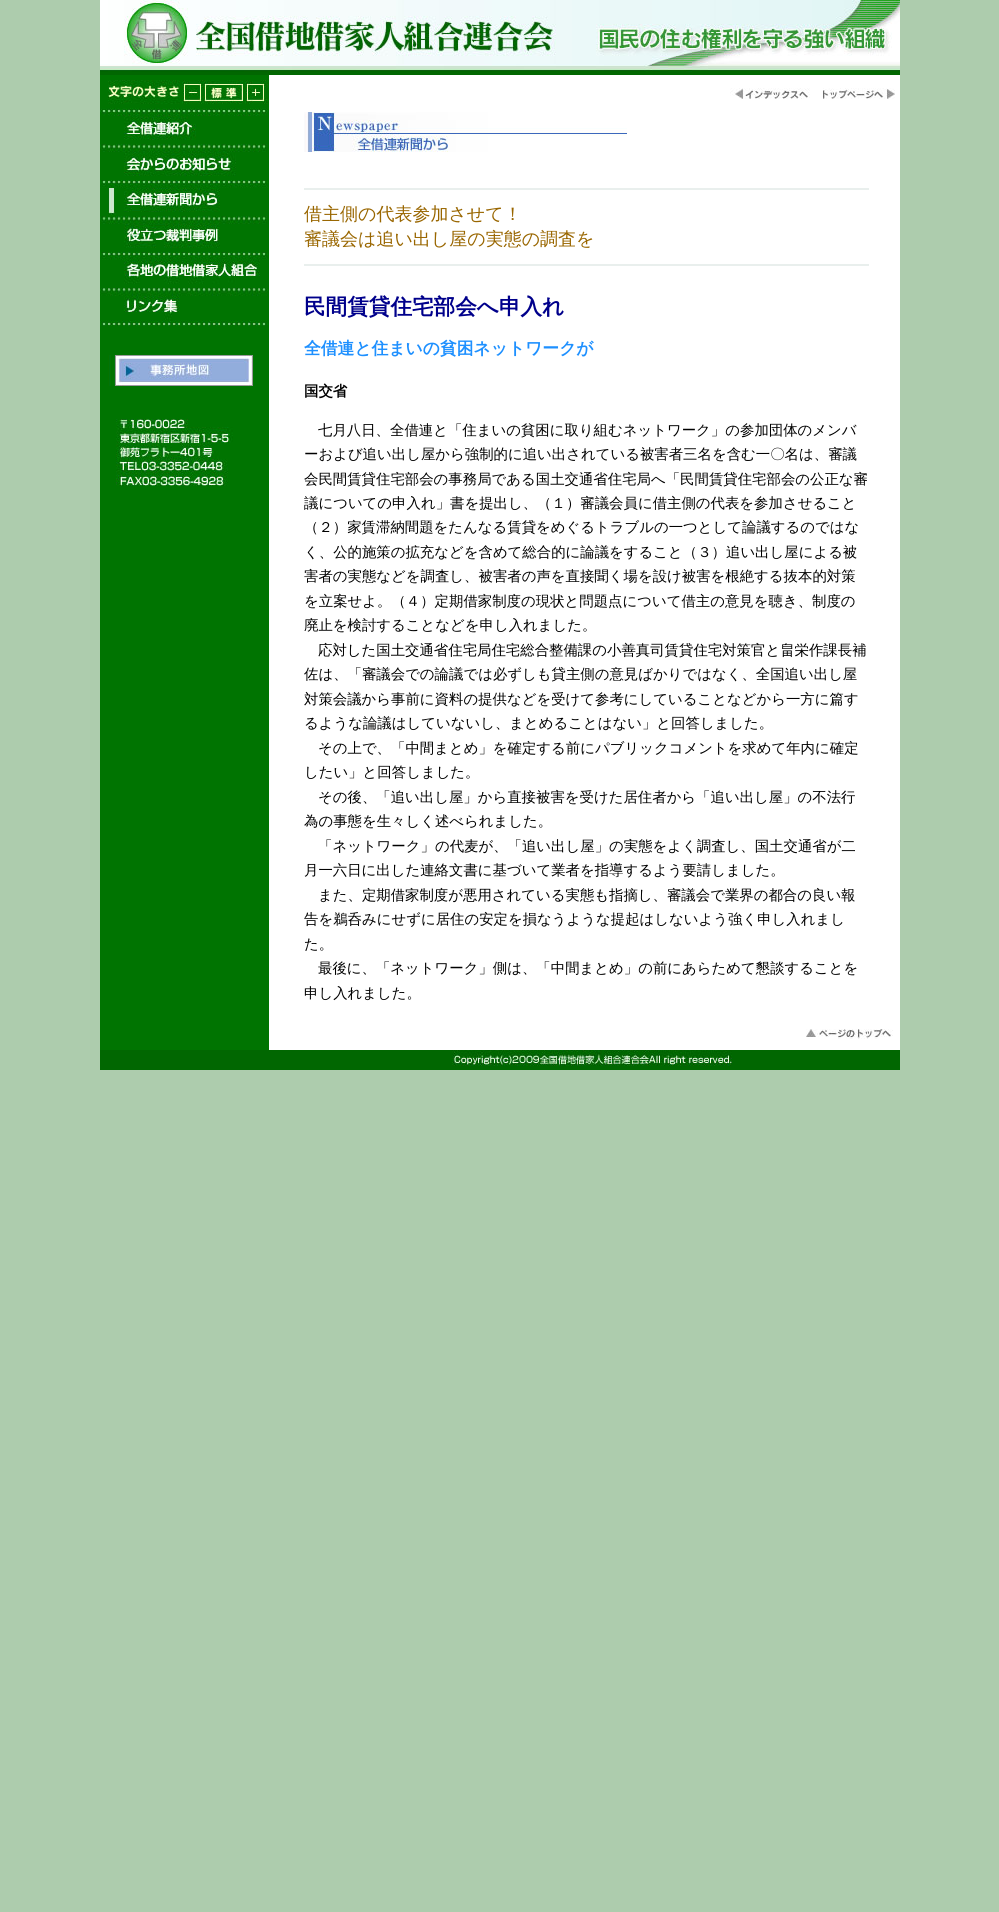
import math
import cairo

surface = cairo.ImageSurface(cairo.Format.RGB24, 999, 1912)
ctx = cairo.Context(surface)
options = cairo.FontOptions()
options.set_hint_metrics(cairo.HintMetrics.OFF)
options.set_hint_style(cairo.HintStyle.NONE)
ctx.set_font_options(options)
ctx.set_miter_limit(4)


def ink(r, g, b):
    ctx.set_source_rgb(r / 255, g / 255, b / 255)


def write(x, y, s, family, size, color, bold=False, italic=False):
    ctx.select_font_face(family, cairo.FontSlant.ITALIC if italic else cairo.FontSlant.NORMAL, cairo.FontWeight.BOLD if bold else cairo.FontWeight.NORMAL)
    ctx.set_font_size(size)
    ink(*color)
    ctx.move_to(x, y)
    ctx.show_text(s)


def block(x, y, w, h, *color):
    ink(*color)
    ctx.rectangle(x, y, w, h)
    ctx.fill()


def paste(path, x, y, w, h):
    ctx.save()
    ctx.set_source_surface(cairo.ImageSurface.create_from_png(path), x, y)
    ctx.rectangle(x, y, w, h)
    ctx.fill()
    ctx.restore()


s1 = dict(family="WenQuanYi Zen Hei Medium", size=18, color=(153, 102, 0))
s2 = dict(family="WenQuanYi Zen Hei", size=21.6, color=(0, 0, 139), bold=True)
s3 = dict(family="WenQuanYi Zen Hei", size=16.8, color=(30, 144, 255), bold=True)
s4 = dict(family="WenQuanYi Zen Hei", size=14.4, color=(0, 0, 0), bold=True)
s5 = dict(family="WenQuanYi Zen Hei Medium", size=14.4, color=(0, 0, 0))

ink(173, 204, 173)
ctx.paint()
block(269, 75, 631, 975, 255, 255, 255)
paste("pic1.png", 100, 0, 800, 75)
block(100, 75, 169, 975, 0, 116, 1)
paste("pic2.png", 108, 80, 72, 24)
paste("pic3.png", 182, 80, 21, 24)
paste("pic4.png", 203, 80, 40, 24)
paste("pic5.png", 245, 80, 23, 24)
paste("pic6.png", 100, 108, 168, 32)
paste("pic7.png", 100, 144, 167, 32)
paste("pic8.png", 100, 180, 168, 36)
paste("pic9.png", 100, 216, 167, 32)
paste("pic10.png", 100, 252, 168, 32)
paste("pic11.png", 100, 288, 168, 38)
paste("pic12.png", 108, 355, 145, 31)
paste("pic13.png", 116, 419, 117, 67)
paste("pic14.png", 730, 88, 80, 11)
paste("pic15.png", 823, 88, 72, 11)
paste("pic16.png", 304, 112, 323, 40)
block(304, 188, 565, 2, 233, 239, 237)
write(304, 220, "借主側の代表参加させて！", **s1)
write(304, 245, "審議会は追い出し屋の実態の調査を", **s1)
block(304, 264, 565, 2, 233, 239, 237)
write(304, 314, "民間賃貸住宅部会へ申入れ", **s2)
write(304, 354, "全借連と住まいの貧困ネットワークが", **s3)
write(304, 396, "国交省", **s4)
write(318, 435, "七月八日、全借連と「住まいの貧困に取り組むネットワーク」の参加団体のメンバ", **s5)
write(304, 459, "ーおよび追い出し屋から強制的に追い出されている被害者三名を含む一〇名は、審議", **s5)
write(304, 484, "会民間賃貸住宅部会の事務局である国土交通省住宅局へ「民間賃貸住宅部会の公正な審", **s5)
write(304, 508, "議についての申入れ」書を提出し、（１）審議会員に借主側の代表を参加させること", **s5)
write(304, 532, "（２）家賃滞納間題をたんなる賃貸をめぐるトラブルの一つとして論議するのではな", **s5)
write(304, 557, "く、公的施策の拡充などを含めて総合的に論議をすること（３）追い出し屋による被", **s5)
write(304, 581, "害者の実態などを調査し、被害者の声を直接聞く場を設け被害を根絶する抜本的対策", **s5)
write(304, 606, "を立案せよ。（４）定期借家制度の現状と問題点について借主の意見を聴き、制度の", **s5)
write(304, 630, "廃止を検討することなどを申し入れました。", **s5)
write(318, 655, "応対した国土交通省住宅局住宅総合整備課の小善真司賃貸住宅対策官と畠栄作課長補", **s5)
write(304, 679, "佐は、「審議会での論議では必ずしも貸主側の意見ばかりではなく、全国追い出し屋", **s5)
write(304, 704, "対策会議から事前に資料の提供などを受けて参考にしていることなどから一方に篇す", **s5)
write(304, 728, "るような論議はしていないし、まとめることはない」と回答しました。", **s5)
write(318, 753, "その上で、「中間まとめ」を確定する前にパブリックコメントを求めて年内に確定", **s5)
write(304, 777, "したい」と回答しました。", **s5)
write(318, 802, "その後、「追い出し屋」から直接被害を受けた居住者から「追い出し屋」の不法行", **s5)
write(304, 826, "為の事態を生々しく述べられました。", **s5)
write(318, 851, "「ネットワーク」の代麦が、「追い出し屋」の実態をよく調査し、国土交通省が二", **s5)
write(304, 875, "月一六日に出した連絡文書に基づいて業者を指導するよう要請しました。", **s5)
write(318, 900, "また、定期借家制度が悪用されている実態も指摘し、審議会で業界の都合の良い報", **s5)
write(304, 924, "告を鵜呑みにせずに居住の安定を損なうような提起はしないよう強く申し入れまし", **s5)
write(304, 949, "た。", **s5)
write(318, 973, "最後に、「ネットワーク」側は、「中間まとめ」の前にあらためて懇談することを", **s5)
write(304, 998, "申し入れました。", **s5)
paste("pic17.png", 806, 1029, 87, 10)
paste("pic18.png", 100, 1050, 800, 20)
surface.write_to_png("screenshot.png")
